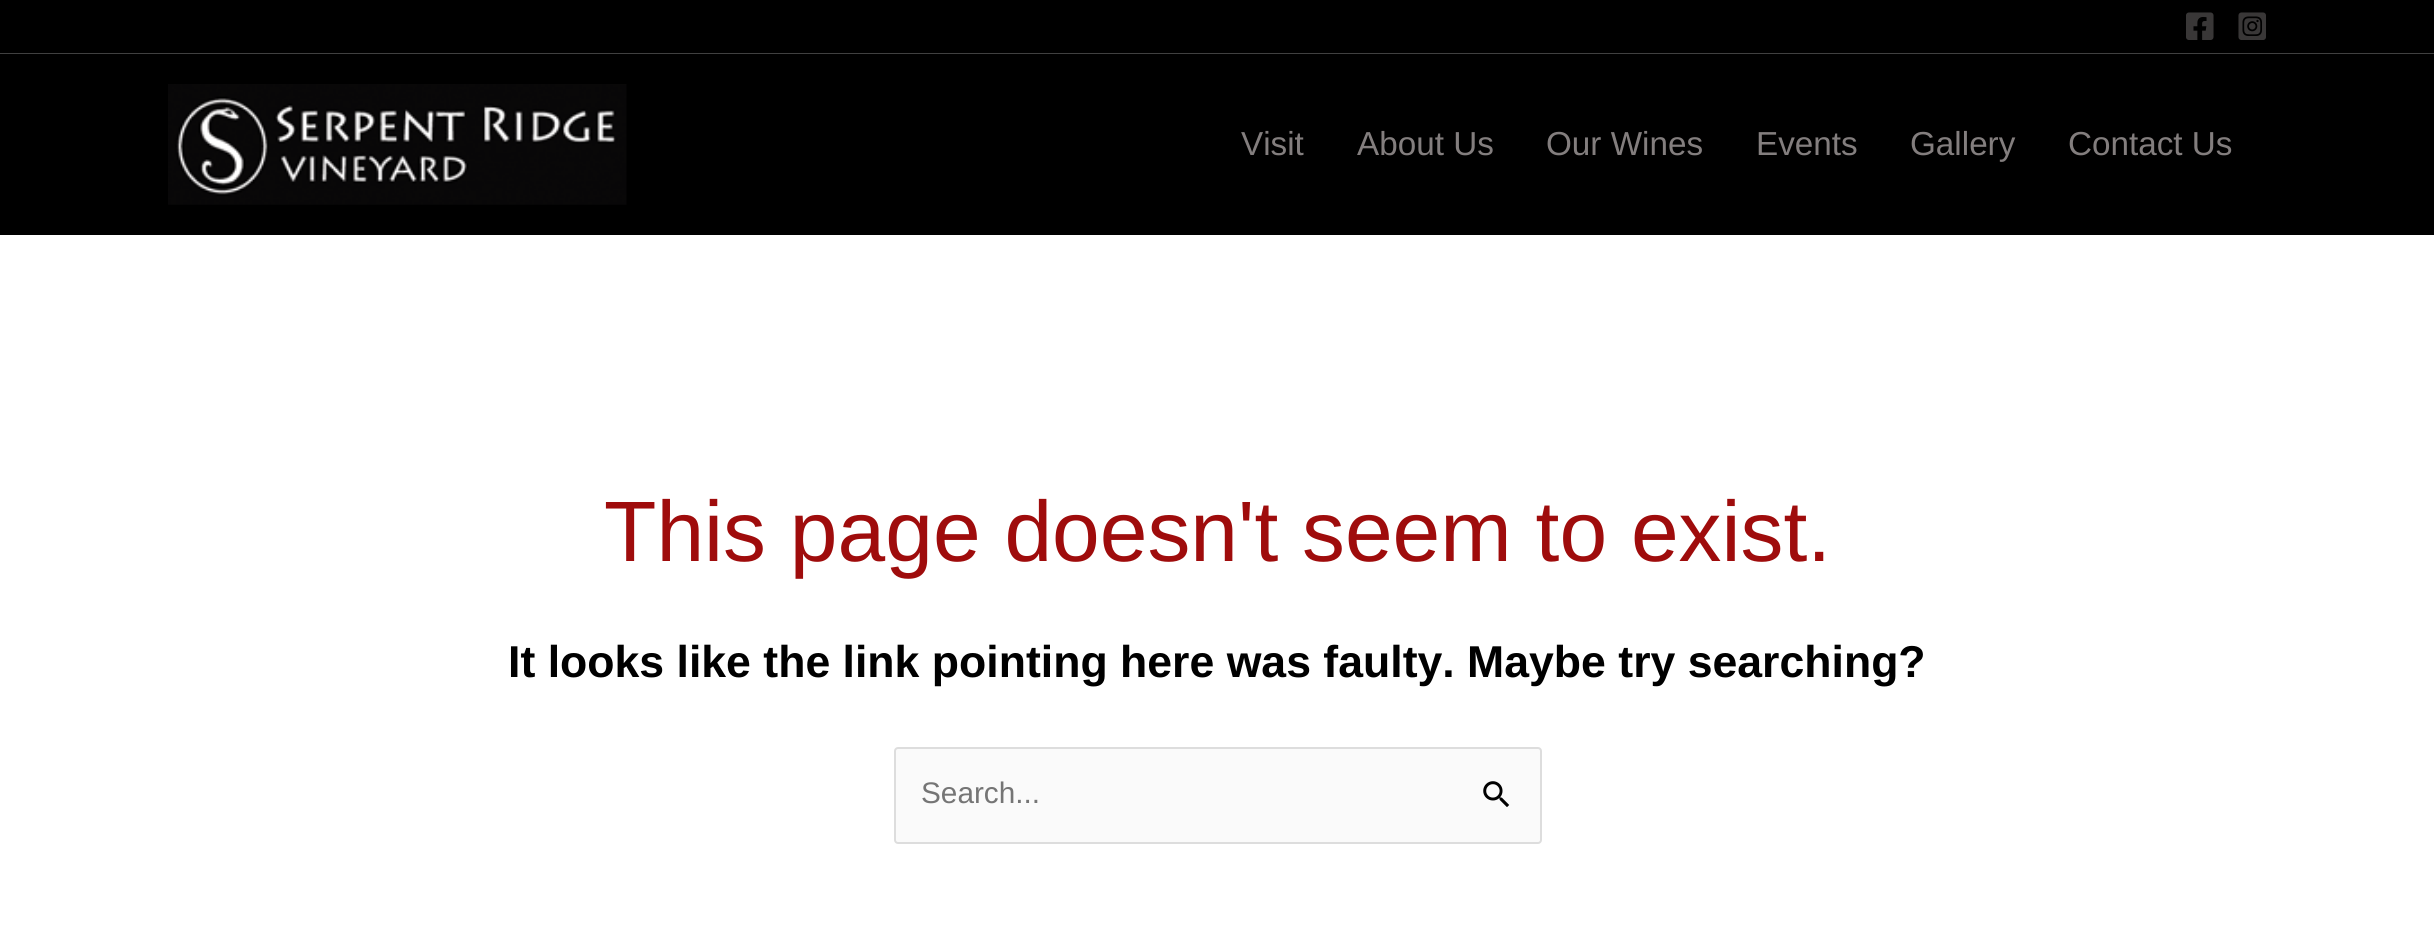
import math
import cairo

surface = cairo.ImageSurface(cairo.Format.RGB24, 2434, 939)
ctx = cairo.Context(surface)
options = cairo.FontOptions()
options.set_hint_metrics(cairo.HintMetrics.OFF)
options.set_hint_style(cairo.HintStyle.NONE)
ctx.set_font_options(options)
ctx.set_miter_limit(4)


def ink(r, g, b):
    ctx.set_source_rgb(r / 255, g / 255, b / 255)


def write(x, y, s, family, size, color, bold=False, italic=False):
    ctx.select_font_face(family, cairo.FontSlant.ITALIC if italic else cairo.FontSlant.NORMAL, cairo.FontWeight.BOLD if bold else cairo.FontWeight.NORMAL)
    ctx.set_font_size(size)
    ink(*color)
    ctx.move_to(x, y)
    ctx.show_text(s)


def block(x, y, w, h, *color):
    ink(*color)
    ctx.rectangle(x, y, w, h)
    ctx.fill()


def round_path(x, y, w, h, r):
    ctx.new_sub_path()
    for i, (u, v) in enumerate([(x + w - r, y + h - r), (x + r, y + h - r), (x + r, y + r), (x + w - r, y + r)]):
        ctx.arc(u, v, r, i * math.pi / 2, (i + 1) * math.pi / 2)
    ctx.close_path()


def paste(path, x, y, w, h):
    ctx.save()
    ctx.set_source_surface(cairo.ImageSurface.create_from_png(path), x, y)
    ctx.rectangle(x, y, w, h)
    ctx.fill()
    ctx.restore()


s1 = dict(family="Liberation Sans", size=33.25, color=(131, 126, 126))
s2 = dict(family="Liberation Sans", size=85.75, color=(159, 12, 12))
s3 = dict(family="Liberation Sans", size=44.6, color=(0, 0, 0), bold=True)
s4 = dict(family="Liberation Sans", size=29.75, color=(117, 117, 117))

ink(255, 255, 255)
ctx.paint()
block(0, 0, 2434, 53, 0, 0, 0)
block(0, 53, 2434, 1, 64, 64, 64)
paste("pic1.png", 2186, 12, 28, 28)
paste("pic2.png", 2238, 12, 28, 28)
block(0, 54, 2434, 181, 0, 0, 0)
paste("pic3.png", 168, 84, 459, 121)
write(1241, 155, "Visit", **s1)
write(1357, 155, "About Us", **s1)
write(1546, 155, "Our Wines", **s1)
write(1756, 155, "Events", **s1)
write(1910, 155, "Gallery", **s1)
write(2068, 155, "Contact Us", **s1)
write(604, 561, "This page doesn't seem to exist.", **s2)
write(508, 677, "It looks like the link pointing here was faulty. Maybe try searching?", **s3)
ink(250, 250, 250)
round_path(895, 748, 646, 95, 3)
ctx.fill_preserve()
ink(221, 221, 221)
ctx.stroke()
write(921, 803, "Search...", **s4)
paste("pic4.png", 1483, 781, 27, 26)
surface.write_to_png("screenshot.png")
